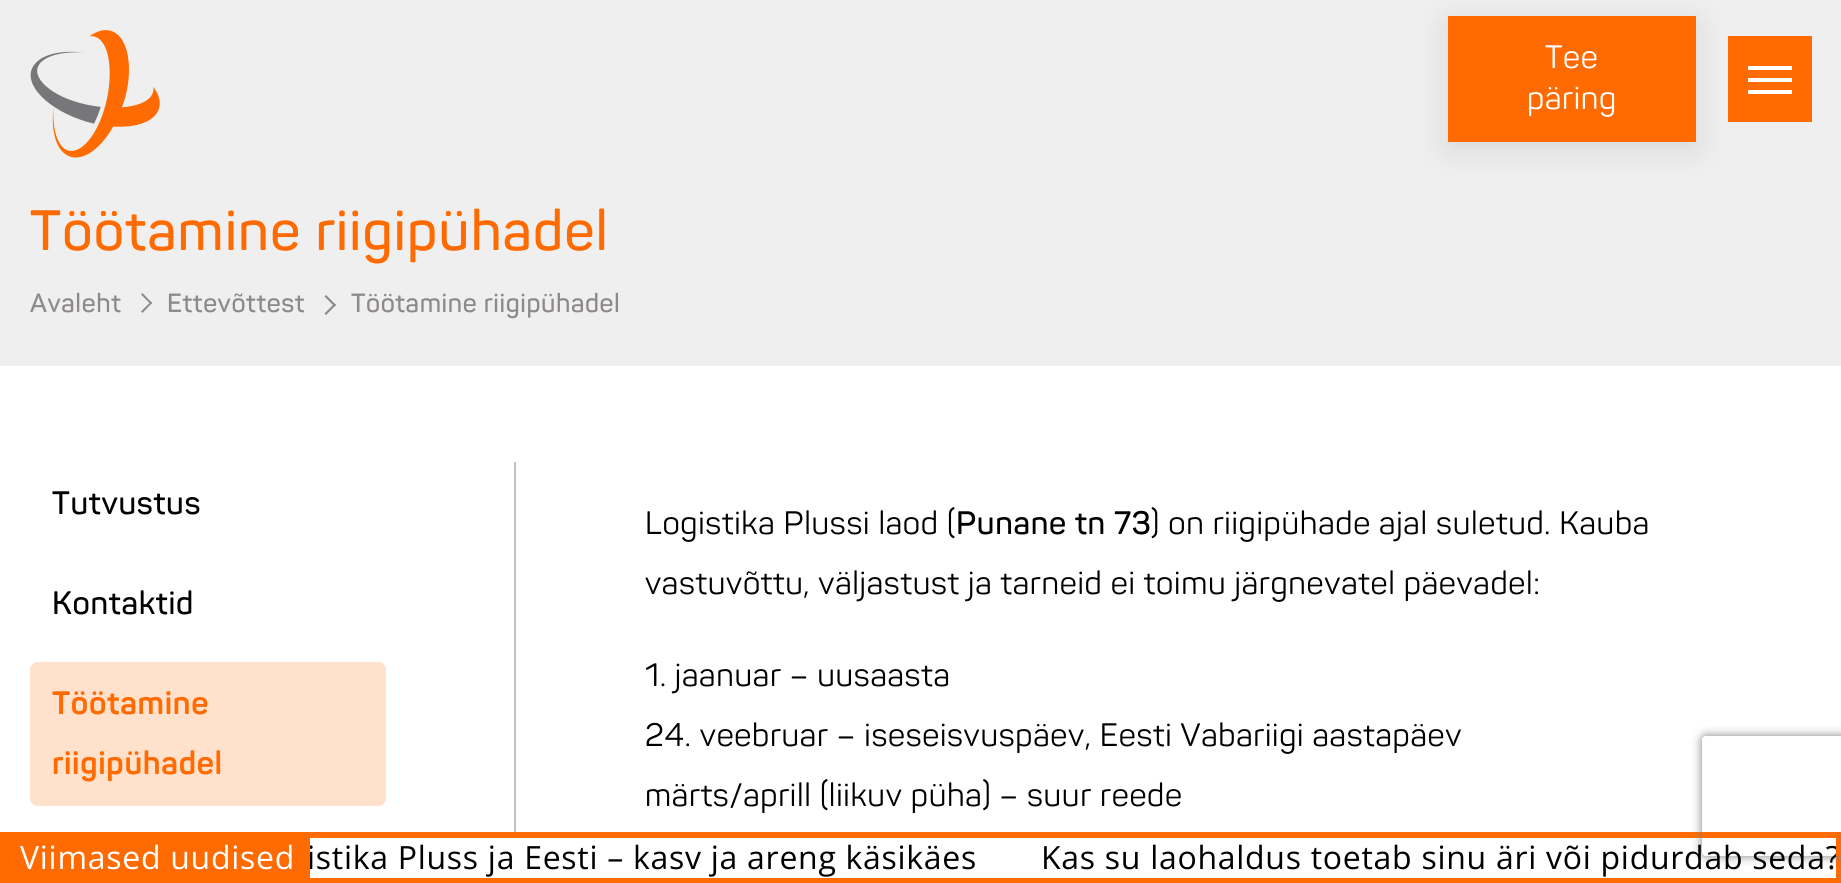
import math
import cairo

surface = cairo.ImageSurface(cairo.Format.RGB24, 1841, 883)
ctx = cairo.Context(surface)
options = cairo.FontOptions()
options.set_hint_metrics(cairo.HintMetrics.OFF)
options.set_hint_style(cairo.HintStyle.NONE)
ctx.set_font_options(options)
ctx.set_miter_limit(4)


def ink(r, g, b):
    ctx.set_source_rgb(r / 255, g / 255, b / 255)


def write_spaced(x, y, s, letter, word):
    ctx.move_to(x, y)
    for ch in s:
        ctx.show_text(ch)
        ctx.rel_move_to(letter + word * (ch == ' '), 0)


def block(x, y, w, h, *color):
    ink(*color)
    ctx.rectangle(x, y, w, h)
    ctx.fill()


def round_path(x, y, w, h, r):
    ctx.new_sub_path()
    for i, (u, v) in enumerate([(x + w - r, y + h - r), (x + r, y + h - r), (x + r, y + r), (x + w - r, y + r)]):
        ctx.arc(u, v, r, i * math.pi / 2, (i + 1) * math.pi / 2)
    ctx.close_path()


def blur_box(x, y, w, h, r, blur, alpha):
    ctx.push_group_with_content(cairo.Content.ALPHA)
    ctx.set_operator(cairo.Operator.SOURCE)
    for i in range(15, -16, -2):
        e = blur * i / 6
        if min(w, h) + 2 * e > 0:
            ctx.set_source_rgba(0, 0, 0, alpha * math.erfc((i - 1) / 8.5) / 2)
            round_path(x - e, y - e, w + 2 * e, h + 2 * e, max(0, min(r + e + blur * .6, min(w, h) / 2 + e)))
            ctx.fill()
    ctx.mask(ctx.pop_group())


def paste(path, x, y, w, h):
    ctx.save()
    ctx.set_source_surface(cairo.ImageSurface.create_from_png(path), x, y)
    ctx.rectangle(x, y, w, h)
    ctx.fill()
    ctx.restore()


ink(255, 255, 255)
ctx.paint()
block(0, 0, 1841, 366, 239, 239, 239)
paste("pic1.png", 30, 30, 130, 128)
ink(0, 0, 0)
blur_box(1448, 24, 248, 126, 0, 16, 0.1)
block(1448, 16, 248, 126, 255, 107, 0)
ctx.select_font_face("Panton")
ctx.set_font_size(32)
ink(255, 255, 255)
write_spaced(1545, 68, "Tee", 0.72, 0)
write_spaced(1527, 109, "päring", 0.72, 0)
block(1728, 36, 84, 86, 255, 107, 0)
block(1748, 66, 44, 4, 255, 255, 255)
block(1748, 78, 44, 4, 255, 255, 255)
block(1748, 90, 44, 4, 255, 255, 255)
ctx.select_font_face("Panton SemiBold")
ctx.set_font_size(56)
ink(255, 107, 0)
write_spaced(30, 250, "Töötamine riigipühadel", 1.25, 0)
ctx.set_font_size(26)
ink(140, 137, 136)
write_spaced(30, 312, "Avaleht", 0.6, 0)
ctx.new_path()
ctx.move_to(141, 294.5)
ctx.line_to(142.5, 293)
ctx.line_to(152, 303)
ctx.line_to(151, 304.5)
ctx.close_path()
ctx.fill()
ctx.new_path()
ctx.move_to(141, 311.5)
ctx.line_to(151, 301.5)
ctx.line_to(152, 303)
ctx.line_to(142.5, 313)
ctx.close_path()
ctx.fill()
write_spaced(167, 312, "Ettevõttest", 0.6, 0)
ctx.new_path()
ctx.move_to(324.5, 296.5)
ctx.line_to(326, 295)
ctx.line_to(336, 305)
ctx.line_to(334.5, 306.5)
ctx.close_path()
ctx.fill()
ctx.new_path()
ctx.move_to(324.5, 313.5)
ctx.line_to(334.5, 303.5)
ctx.line_to(336, 305)
ctx.line_to(326, 315)
ctx.close_path()
ctx.fill()
write_spaced(351, 312, "Töötamine riigipühadel", 0.6, 0)
block(514, 462, 2, 370, 194, 194, 194)
ctx.set_font_size(32)
ink(0, 0, 0)
write_spaced(52, 514, "Tutvustus", 0.72, 0)
write_spaced(52, 614, "Kontaktid", 0.72, 0)
ink(255, 225, 204)
round_path(30, 662, 356, 144, 8)
ctx.fill()
ctx.select_font_face("Panton", cairo.FontSlant.NORMAL, cairo.FontWeight.BOLD)
ink(255, 107, 0)
write_spaced(52, 714, "Töötamine", 0.72, 0)
write_spaced(52, 774, "riigipühadel", 0.72, 0)
ctx.select_font_face("Panton")
ink(0, 0, 0)
write_spaced(645, 534, "Logistika Plussi laod (", 0.72, 0)
ctx.select_font_face("Panton SemiBold")
write_spaced(956, 534, "Punane tn 73", 0.72, 0)
ctx.select_font_face("Panton")
write_spaced(1151, 534, ") on riigipühade ajal suletud. Kauba", 0.72, 0)
write_spaced(645, 594, "vastuvõttu, väljastust ja tarneid ei toimu järgnevatel päevadel:", 0.72, 0)
write_spaced(645, 686, "1. jaanuar – uusaasta", 0.72, 0)
write_spaced(645, 746, "24. veebruar – iseseisvuspäev, Eesti Vabariigi aastapäev", 0.72, 0)
write_spaced(645, 806, "märts/aprill (liikuv püha) – suur reede", 0.72, 0)
block(0, 832, 1841, 51, 255, 107, 0)
block(310, 838, 1526, 40, 255, 255, 255)
ctx.save()
ctx.set_fill_rule(cairo.FillRule.EVEN_ODD)
ctx.new_path()
ctx.move_to(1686, 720)
ctx.line_to(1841, 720)
ctx.line_to(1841, 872)
ctx.line_to(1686, 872)
ctx.close_path()
ctx.move_to(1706, 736)
ctx.line_to(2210, 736)
ctx.curve_to(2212, 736, 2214, 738, 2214, 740)
ctx.line_to(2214, 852)
ctx.curve_to(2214, 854, 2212, 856, 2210, 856)
ctx.line_to(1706, 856)
ctx.curve_to(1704, 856, 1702, 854, 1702, 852)
ctx.line_to(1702, 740)
ctx.curve_to(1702, 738, 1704, 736, 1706, 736)
ctx.close_path()
ctx.clip()
ink(128, 128, 128)
blur_box(1702, 736, 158, 120, 4, 5, 1)
ctx.restore()
ctx.select_font_face("Open Sans")
write_spaced(20, 869, "Viimased uudised", 0.72, 0)
ctx.save()
ctx.rectangle(310, 838, 1526, 40)
ctx.clip()
ink(0, 0, 0)
write_spaced(307, 869, "istika Pluss ja Eesti – kasv ja areng käsikäes", 0.72, 0)
write_spaced(1041, 869, "Kas su laohaldus toetab sinu äri või pidurdab seda?", 0.72, 0)
ctx.restore()
surface.write_to_png("screenshot.png")
